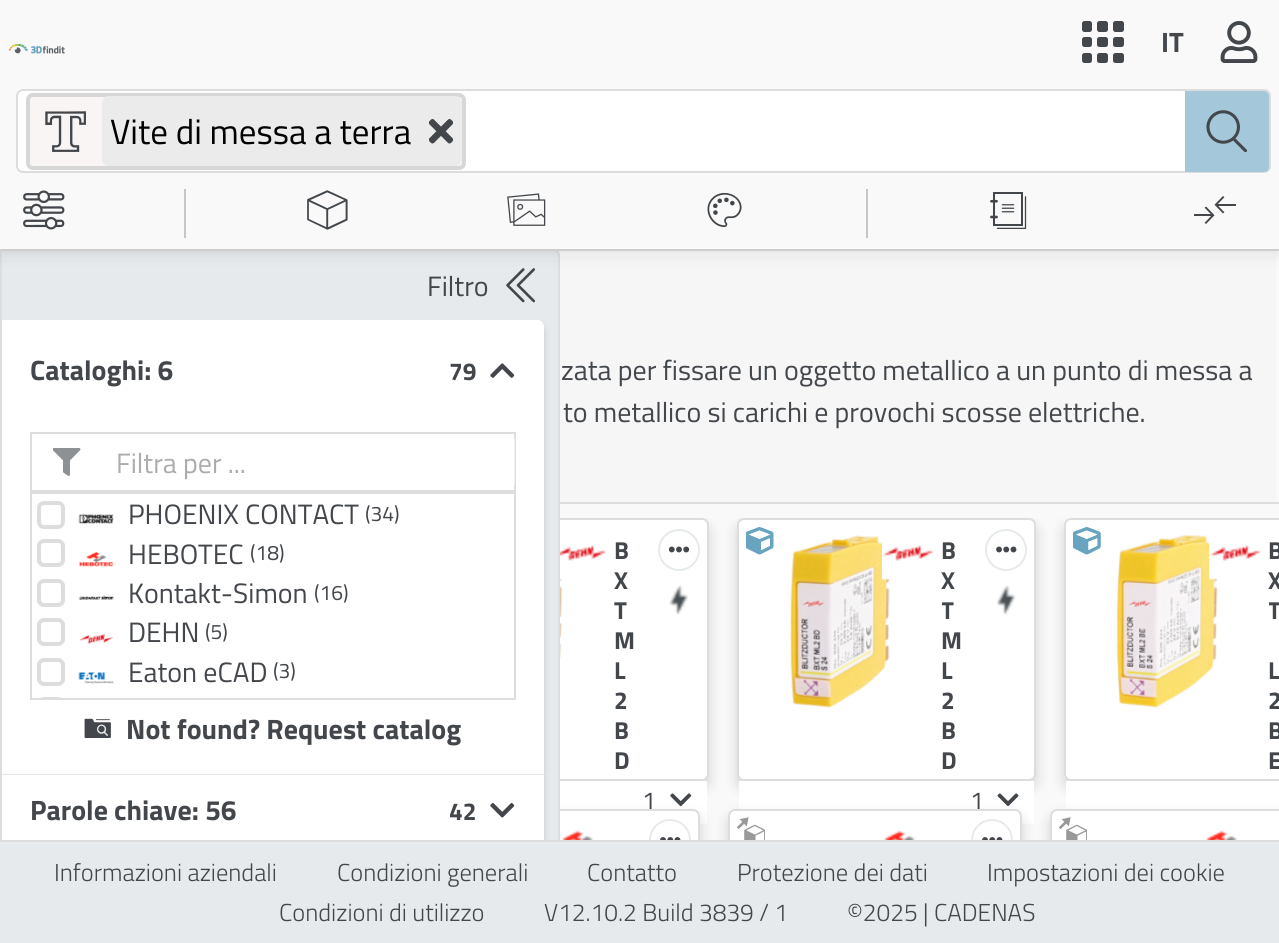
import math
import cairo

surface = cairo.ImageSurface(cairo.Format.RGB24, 1279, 943)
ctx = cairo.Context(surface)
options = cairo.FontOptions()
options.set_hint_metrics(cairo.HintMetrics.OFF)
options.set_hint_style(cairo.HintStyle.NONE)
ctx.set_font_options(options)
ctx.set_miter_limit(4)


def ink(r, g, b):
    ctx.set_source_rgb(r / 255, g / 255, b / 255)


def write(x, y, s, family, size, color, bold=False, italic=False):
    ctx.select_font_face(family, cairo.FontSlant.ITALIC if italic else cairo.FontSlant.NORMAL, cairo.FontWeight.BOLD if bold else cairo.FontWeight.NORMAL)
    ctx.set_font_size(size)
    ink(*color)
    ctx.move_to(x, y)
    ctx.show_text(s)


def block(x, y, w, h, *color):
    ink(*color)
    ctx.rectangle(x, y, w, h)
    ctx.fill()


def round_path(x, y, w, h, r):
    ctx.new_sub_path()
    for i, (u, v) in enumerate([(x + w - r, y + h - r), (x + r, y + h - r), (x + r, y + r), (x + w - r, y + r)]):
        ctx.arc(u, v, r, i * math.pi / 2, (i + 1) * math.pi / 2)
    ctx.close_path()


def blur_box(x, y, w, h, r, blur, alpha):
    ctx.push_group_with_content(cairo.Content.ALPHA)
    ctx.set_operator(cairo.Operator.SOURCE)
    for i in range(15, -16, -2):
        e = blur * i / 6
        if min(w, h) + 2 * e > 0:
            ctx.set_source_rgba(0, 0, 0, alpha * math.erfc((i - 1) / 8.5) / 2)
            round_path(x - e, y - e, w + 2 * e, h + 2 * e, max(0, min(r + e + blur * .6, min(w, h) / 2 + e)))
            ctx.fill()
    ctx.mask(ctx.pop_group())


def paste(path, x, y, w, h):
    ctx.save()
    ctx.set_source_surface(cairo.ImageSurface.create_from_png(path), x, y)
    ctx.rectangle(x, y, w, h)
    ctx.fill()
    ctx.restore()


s1 = dict(family="Titillium Web Light", size=24.5, color=(67, 71, 75))
s2 = dict(family="Titillium Web", size=28, color=(67, 71, 75), bold=True)
s3 = dict(family="Titillium Web", size=35, color=(0, 0, 0))
s4 = dict(family="Titillium Web", size=28, color=(67, 71, 75))
s5 = dict(family="Titillium Web", size=24.5, color=(67, 71, 75), bold=True)
s6 = dict(family="Titillium Web", size=28, color=(172, 172, 172))
s7 = dict(family="Titillium Web", size=21, color=(67, 71, 75))
s8 = dict(family="Titillium Web", size=24.5, color=(67, 71, 75))

ink(231, 234, 236)
ctx.paint()
block(558, 251, 721, 589, 249, 249, 249)
block(553, 249, 726, 2, 221, 221, 221)
block(560, 502, 719, 2, 221, 221, 221)
ctx.save()
ctx.rectangle(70, 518, 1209, 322)
ctx.clip()
ink(0, 0, 0)
blur_box(410, 525, 299, 263, 7, 7, 0.15)
ctx.restore()
ink(255, 255, 255)
round_path(411, 519, 297, 261, 6)
ctx.fill_preserve()
ink(221, 221, 221)
ctx.stroke()
block(560, 781, 147, 43, 255, 255, 255)
paste("pic27.png", 670, 793, 22, 14)
block(0, 840, 1279, 2, 221, 221, 221)
ctx.save()
ctx.rectangle(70, 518, 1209, 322)
ctx.clip()
ink(0, 0, 0)
blur_box(406, 816, 294, 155, 7, 7, 0.15)
ctx.restore()
ink(255, 255, 255)
ctx.new_path()
ctx.move_to(413, 809)
ctx.line_to(693, 809)
ctx.curve_to(697, 809, 700, 812, 700, 816)
ctx.line_to(700, 840)
ctx.line_to(406, 840)
ctx.line_to(406, 816)
ctx.curve_to(406, 812, 409, 809, 413, 809)
ctx.close_path()
ctx.fill()
write(337, 881, "Condizioni generali", **s1)
write(279, 921, "Condizioni di utilizzo", **s1)
write(544, 921, "V12.10.2 Build 3839 / 1", **s1)
ctx.save()
ctx.rectangle(70, 518, 1209, 322)
ctx.clip()
round_path(407, 810, 292, 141, 6)
ink(221, 221, 221)
ctx.stroke()
ctx.restore()
ink(231, 234, 236)
ctx.new_path()
ctx.move_to(0, 249)
ctx.line_to(553, 249)
ctx.curve_to(557, 249, 560, 252, 560, 256)
ctx.line_to(560, 840)
ctx.line_to(0, 840)
ctx.close_path()
ctx.fill()
ctx.save()
ctx.rectangle(0, 249, 1279, 591)
ctx.clip()
ctx.new_path()
ctx.move_to(1, 250)
ctx.line_to(553, 250)
ctx.curve_to(556.5, 250, 559, 252.5, 559, 256)
ctx.line_to(559, 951)
ctx.line_to(1, 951)
ctx.close_path()
ink(221, 221, 221)
ctx.stroke()
ctx.restore()
paste("pic13.png", 506, 268, 29, 35)
block(560, 256, 716, 246, 246, 246, 246)
ink(0, 0, 0)
blur_box(0, 5, 1279, 249, 0, 7, 0.1)
block(0, 0, 1279, 249, 249, 249, 249)
paste("pic1.png", 9, 44, 56, 10)
paste("pic2.png", 1082, 21, 42, 42)
write(1161, 52, "IT", **s2)
paste("pic3.png", 1220, 21, 38, 42)
ink(255, 255, 255)
round_path(17, 90, 1253, 82, 6)
ctx.fill_preserve()
ink(221, 221, 221)
ctx.stroke()
ink(249, 245, 245)
round_path(28, 95, 436, 73, 5)
ctx.fill_preserve()
ink(215, 215, 215)
ctx.set_line_width(4)
ctx.stroke()
paste("pic4.png", 45, 111, 41, 41)
ink(235, 235, 235)
round_path(102, 96, 360, 70, 7)
ctx.fill()
write(110, 144, "Vite di messa a terra", **s3)
paste("pic5.png", 429, 119, 24, 25)
ink(164, 200, 217)
ctx.new_path()
ctx.move_to(1185, 91)
ctx.line_to(1264, 91)
ctx.curve_to(1267, 91, 1269, 93, 1269, 96)
ctx.line_to(1269, 167)
ctx.curve_to(1269, 170, 1267, 172, 1264, 172)
ctx.line_to(1185, 172)
ctx.close_path()
ctx.fill()
paste("pic6.png", 1206, 110, 41, 42)
paste("pic7.png", 23, 190, 42, 40)
block(184, 189, 2, 49, 198, 198, 198)
paste("pic8.png", 307, 190, 41, 40)
paste("pic9.png", 507, 193, 39, 33)
paste("pic10.png", 707, 192, 35, 36)
block(866, 189, 2, 49, 198, 198, 198)
paste("pic11.png", 990, 192, 37, 37)
paste("pic12.png", 1194, 196, 42, 28)
write(427, 296, "Filtro", **s4)
ctx.save()
ctx.rectangle(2, 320, 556, 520)
ctx.clip()
ink(0, 0, 0)
blur_box(2, 324, 542, 455, 7, 3.5, 0.15)
ctx.restore()
ink(255, 255, 255)
ctx.new_path()
ctx.move_to(2, 320)
ctx.line_to(537, 320)
ctx.curve_to(541, 320, 544, 323, 544, 327)
ctx.line_to(544, 775)
ctx.line_to(2, 775)
ctx.close_path()
ctx.fill()
ctx.set_source_rgba(0, 0, 0, 0.1)
ctx.rectangle(2, 774, 542, 1)
ctx.fill()
write(30, 380, "Cataloghi: 6", **s2)
write(449, 380, "79", **s5)
paste("pic14.png", 490, 363, 25, 15)
ctx.rectangle(31, 433, 484, 58)
ink(221, 221, 221)
ctx.set_line_width(2)
ctx.stroke()
paste("pic15.png", 53, 448, 28, 28)
ctx.set_source_rgba(1, 1, 1, 0.6)
round_path(102, 434, 413, 56, 7)
ctx.fill()
write(116, 473, "Filtra per ...", **s6)
ctx.rectangle(31, 493, 484, 206)
ink(221, 221, 221)
ctx.stroke()
round_path(39, 503, 24, 24, 5)
ctx.set_line_width(4)
ctx.stroke()
paste("pic16.png", 78, 514, 36, 10)
write(128, 524, "PHOENIX CONTACT", **s4)
write(365, 521, "(34)", **s7)
round_path(39, 541, 24, 24, 5)
ink(221, 221, 221)
ctx.stroke()
paste("pic17.png", 78, 552, 36, 15)
write(128, 564, "HEBOTEC", **s4)
write(250, 560, "(18)", **s7)
round_path(39, 581, 24, 24, 5)
ink(221, 221, 221)
ctx.stroke()
paste("pic18.png", 78, 595, 36, 5)
write(128, 603, "Kontakt-Simon", **s4)
write(314, 600, "(16)", **s7)
round_path(39, 620, 24, 24, 5)
ink(221, 221, 221)
ctx.stroke()
paste("pic19.png", 79, 634, 35, 10)
write(128, 642, "DEHN", **s4)
write(205, 639, "(5)", **s7)
round_path(39, 660, 24, 24, 5)
ink(221, 221, 221)
ctx.stroke()
paste("pic20.png", 78, 672, 36, 12)
write(128, 682, "Eaton eCAD", **s4)
write(273, 678, "(3)", **s7)
ctx.save()
ctx.rectangle(37, 494, 478, 204)
ctx.clip()
round_path(39, 699, 24, 24, 5)
ink(221, 221, 221)
ctx.stroke()
ctx.restore()
paste("pic21.png", 84, 718, 27, 20)
write(126, 739, "Not found? Request catalog", **s2)
ctx.save()
ctx.rectangle(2, 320, 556, 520)
ctx.clip()
ink(0, 0, 0)
blur_box(2, 779, 542, 72, 0, 3.5, 0.15)
ctx.restore()
block(2, 775, 542, 65, 255, 255, 255)
write(30, 820, "Parole chiave: 56", **s2)
write(449, 820, "42", **s5)
paste("pic22.png", 490, 803, 25, 15)
write(561, 380, "zata per fissare un oggetto metallico a un punto di messa a", **s4)
write(563, 422, "to metallico si carichi e provochi scosse elettriche.", **s4)
paste("pic23.png", 560, 534, 3, 174)
paste("pic24.png", 560, 542, 47, 38)
write(614, 559, "B", **s5)
write(614, 589, "X", **s5)
write(614, 619, "T", **s5)
write(614, 649, "M", **s5)
write(614, 679, "L", **s5)
write(614, 709, "2", **s5)
write(614, 739, "B", **s5)
write(614, 769, "D", **s5)
paste("pic25.png", 669, 585, 20, 30)
ctx.arc(679, 550, 20, 0, 2 * math.pi)
ink(231, 234, 236)
ctx.set_line_width(2)
ctx.stroke()
paste("pic26.png", 669, 546, 21, 7)
block(703, 779, 4, 2, 221, 221, 221)
write(642, 809, "1", **s8)
ctx.save()
ctx.rectangle(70, 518, 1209, 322)
ctx.clip()
ink(0, 0, 0)
blur_box(737, 525, 299, 263, 7, 7, 0.15)
ctx.restore()
ink(255, 255, 255)
round_path(738, 519, 297, 261, 6)
ctx.fill_preserve()
ink(221, 221, 221)
ctx.stroke()
paste("pic28.png", 746, 527, 28, 28)
paste("pic29.png", 790, 535, 101, 173)
paste("pic30.png", 882, 542, 52, 38)
write(941, 559, "B", **s5)
write(941, 589, "X", **s5)
ctx.save()
ctx.rectangle(942, 534, 21, 306)
ctx.clip()
write(941, 619, "T", **s5)
ctx.restore()
write(941, 649, "M", **s5)
write(941, 679, "L", **s5)
write(941, 709, "2", **s5)
write(941, 739, "B", **s5)
write(941, 769, "D", **s5)
paste("pic31.png", 997, 585, 19, 30)
ctx.arc(1006, 550, 20, 0, 2 * math.pi)
ink(231, 234, 236)
ctx.stroke()
paste("pic32.png", 996, 546, 21, 7)
block(739, 781, 295, 43, 255, 255, 255)
block(739, 779, 295, 2, 221, 221, 221)
write(970, 809, "1", **s8)
paste("pic33.png", 997, 793, 22, 13)
ctx.save()
ctx.rectangle(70, 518, 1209, 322)
ctx.clip()
ink(0, 0, 0)
blur_box(1064, 525, 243, 263, 7, 7, 0.15)
ctx.restore()
ink(255, 255, 255)
ctx.new_path()
ctx.move_to(1071, 518)
ctx.line_to(1279, 518)
ctx.line_to(1279, 781)
ctx.line_to(1071, 781)
ctx.curve_to(1067, 781, 1064, 778, 1064, 774)
ctx.line_to(1064, 525)
ctx.curve_to(1064, 521, 1067, 518, 1071, 518)
ctx.close_path()
ctx.fill()
round_path(1065, 519, 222, 261, 6)
ink(221, 221, 221)
ctx.stroke()
paste("pic34.png", 1073, 527, 28, 28)
paste("pic35.png", 1116, 534, 102, 174)
paste("pic36.png", 1209, 542, 53, 38)
write(1268, 559, "B", **s5)
write(1268, 589, "X", **s5)
ctx.save()
ctx.rectangle(1269, 534, 10, 306)
ctx.clip()
write(1268, 619, "T", **s5)
ctx.restore()
write(1268, 679, "L", **s5)
write(1268, 709, "2", **s5)
write(1268, 739, "B", **s5)
write(1268, 769, "E", **s5)
block(1066, 781, 213, 28, 255, 255, 255)
block(1066, 779, 4, 2, 221, 221, 221)
paste("pic37.png", 561, 830, 33, 10)
ctx.save()
ctx.rectangle(70, 518, 1209, 322)
ctx.clip()
ctx.arc(670, 840, 20, 0, 2 * math.pi)
ink(231, 234, 236)
ctx.stroke()
ctx.restore()
paste("pic38.png", 660, 837, 21, 3)
ctx.save()
ctx.rectangle(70, 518, 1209, 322)
ctx.clip()
ink(0, 0, 0)
blur_box(728, 816, 294, 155, 7, 7, 0.15)
ctx.restore()
ink(255, 255, 255)
ctx.new_path()
ctx.move_to(735, 809)
ctx.line_to(1015, 809)
ctx.curve_to(1019, 809, 1022, 812, 1022, 816)
ctx.line_to(1022, 840)
ctx.line_to(728, 840)
ctx.line_to(728, 816)
ctx.curve_to(728, 812, 731, 809, 735, 809)
ctx.close_path()
ctx.fill()
write(987, 881, "Impostazioni dei cookie", **s1)
write(847, 921, "©2025 | CADENAS", **s1)
ctx.save()
ctx.rectangle(70, 518, 1209, 322)
ctx.clip()
round_path(729, 810, 292, 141, 6)
ink(221, 221, 221)
ctx.stroke()
ctx.restore()
paste("pic39.png", 737, 817, 28, 23)
paste("pic37.png", 883, 830, 33, 10)
ctx.save()
ctx.rectangle(70, 518, 1209, 322)
ctx.clip()
ctx.arc(992, 840, 20, 0, 2 * math.pi)
ink(231, 234, 236)
ctx.stroke()
ctx.restore()
paste("pic38.png", 982, 837, 21, 3)
ctx.save()
ctx.rectangle(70, 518, 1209, 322)
ctx.clip()
ink(0, 0, 0)
blur_box(1050, 816, 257, 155, 7, 7, 0.15)
ctx.restore()
ink(255, 255, 255)
ctx.new_path()
ctx.move_to(1057, 809)
ctx.line_to(1279, 809)
ctx.line_to(1279, 840)
ctx.line_to(1050, 840)
ctx.line_to(1050, 816)
ctx.curve_to(1050, 812, 1053, 809, 1057, 809)
ctx.close_path()
ctx.fill()
ctx.save()
ctx.rectangle(70, 518, 1209, 322)
ctx.clip()
round_path(1051, 810, 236, 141, 6)
ink(221, 221, 221)
ctx.stroke()
ctx.restore()
paste("pic39.png", 1059, 817, 28, 23)
paste("pic37.png", 1205, 830, 33, 10)
write(54, 881, "Informazioni aziendali", **s1)
write(587, 881, "Contatto", **s1)
write(737, 881, "Protezione dei dati", **s1)
surface.write_to_png("screenshot.png")
